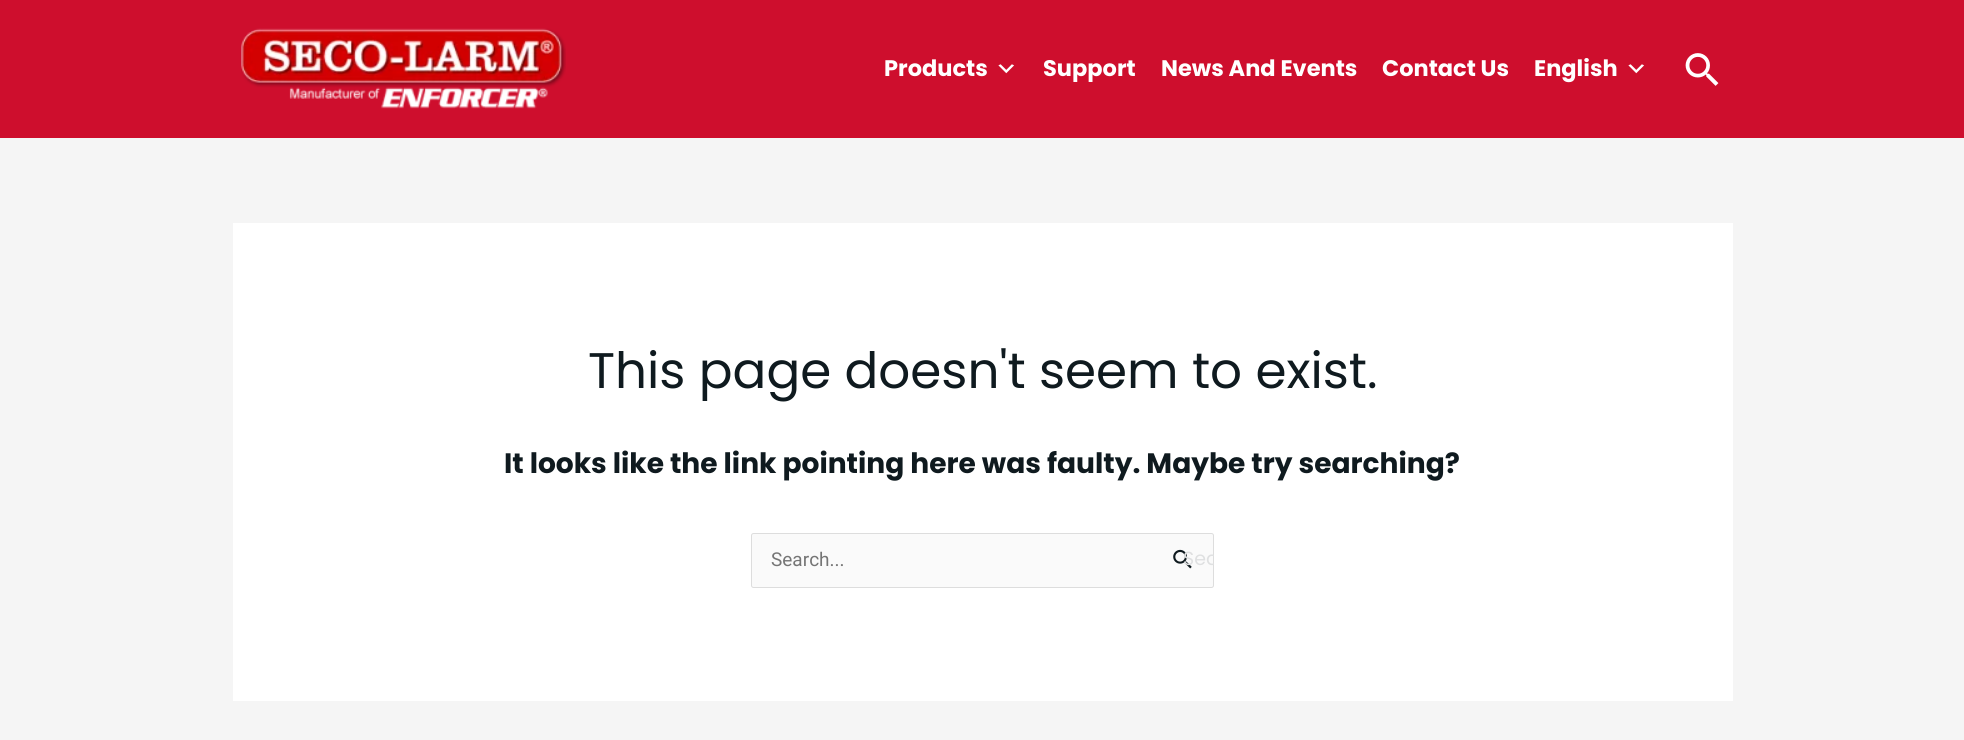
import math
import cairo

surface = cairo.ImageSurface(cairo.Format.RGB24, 1964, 740)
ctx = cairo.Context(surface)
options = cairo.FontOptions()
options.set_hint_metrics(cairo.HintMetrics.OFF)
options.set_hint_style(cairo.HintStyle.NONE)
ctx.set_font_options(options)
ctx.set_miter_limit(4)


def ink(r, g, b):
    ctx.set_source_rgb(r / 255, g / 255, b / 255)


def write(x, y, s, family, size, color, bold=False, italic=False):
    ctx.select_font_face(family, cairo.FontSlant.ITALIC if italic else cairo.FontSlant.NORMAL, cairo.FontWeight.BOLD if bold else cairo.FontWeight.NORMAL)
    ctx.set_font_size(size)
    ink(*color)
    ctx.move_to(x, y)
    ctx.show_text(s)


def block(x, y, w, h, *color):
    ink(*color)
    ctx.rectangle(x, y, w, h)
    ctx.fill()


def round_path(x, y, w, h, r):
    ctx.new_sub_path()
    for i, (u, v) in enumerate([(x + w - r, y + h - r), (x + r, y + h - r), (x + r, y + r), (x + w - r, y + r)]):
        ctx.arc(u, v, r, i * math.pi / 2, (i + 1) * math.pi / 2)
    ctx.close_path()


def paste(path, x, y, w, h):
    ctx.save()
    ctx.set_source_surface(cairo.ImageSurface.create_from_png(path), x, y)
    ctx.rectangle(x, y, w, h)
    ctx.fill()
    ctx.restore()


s1 = dict(family="Poppins", size=22.5, color=(255, 255, 255), bold=True)
s2 = dict(family="Poppins", size=50, color=(15, 26, 31))
s3 = dict(family="Poppins", size=28.1, color=(15, 26, 31), bold=True)
s4 = dict(family="Roboto", size=19, color=(117, 117, 117))
s5 = dict(family="Poppins", size=19, color=(223, 224, 225))

ink(245, 245, 245)
ctx.paint()
block(0, 0, 1964, 138, 206, 14, 45)
paste("pic1.png", 241, 28, 325, 81)
write(884, 76, "Products", **s1)
paste("pic2.png", 998, 64, 16, 10)
write(1043, 76, "Support", **s1)
write(1161, 76, "News And Events", **s1)
write(1382, 76, "Contact Us", **s1)
write(1534, 76, "English", **s1)
paste("pic2.png", 1628, 64, 16, 10)
paste("pic3.png", 1685, 53, 34, 33)
block(233, 223, 1500, 478, 255, 255, 255)
write(588, 388, "This page doesn't seem to exist.", **s2)
write(504, 473, "It looks like the link pointing here was faulty. Maybe try searching?", **s3)
ink(250, 250, 250)
round_path(751.5, 533.5, 462, 54, 2)
ctx.fill_preserve()
ink(221, 221, 221)
ctx.set_line_width(1)
ctx.stroke()
write(771, 566, "Search...", **s4)
paste("pic4.png", 1173, 549, 19, 20)
ctx.save()
round_path(1158, 533, 56, 51, 2.5)
ctx.clip()
write(1183, 565, "Sea", **s5)
ctx.restore()
surface.write_to_png("screenshot.png")
